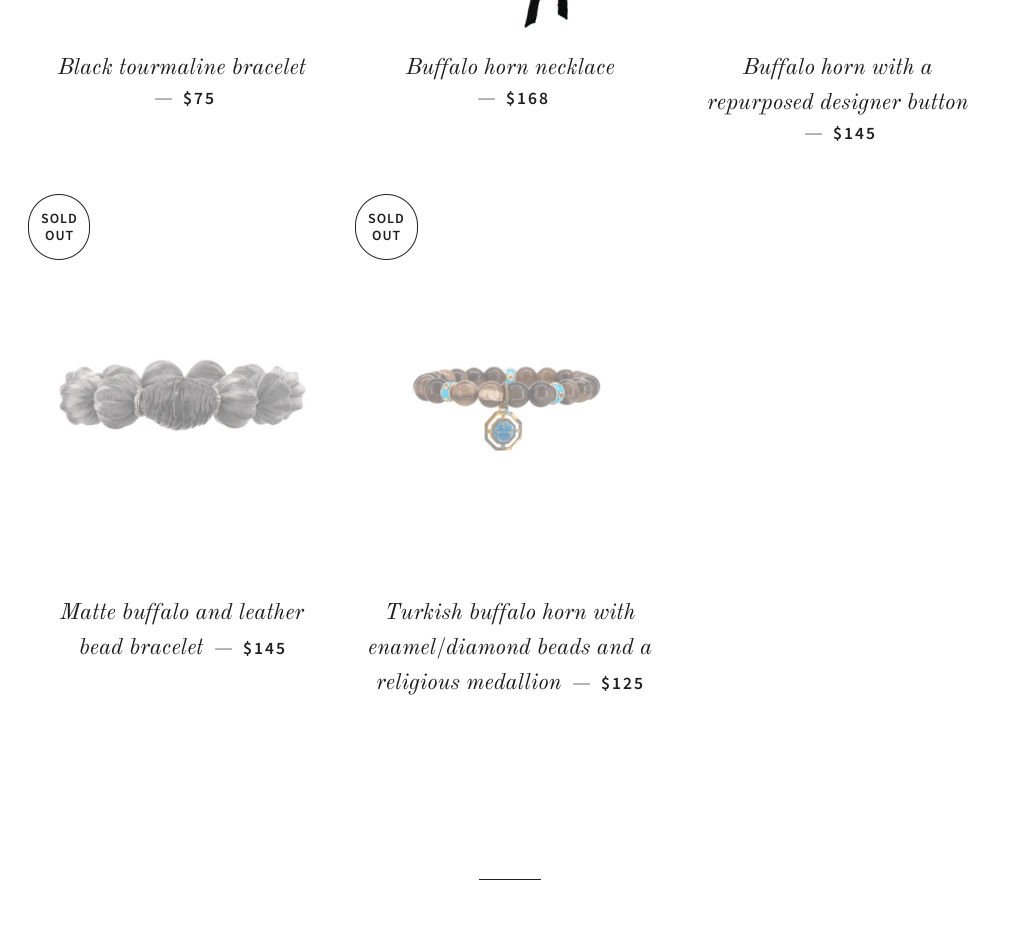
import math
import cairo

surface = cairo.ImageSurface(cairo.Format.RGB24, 1019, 940)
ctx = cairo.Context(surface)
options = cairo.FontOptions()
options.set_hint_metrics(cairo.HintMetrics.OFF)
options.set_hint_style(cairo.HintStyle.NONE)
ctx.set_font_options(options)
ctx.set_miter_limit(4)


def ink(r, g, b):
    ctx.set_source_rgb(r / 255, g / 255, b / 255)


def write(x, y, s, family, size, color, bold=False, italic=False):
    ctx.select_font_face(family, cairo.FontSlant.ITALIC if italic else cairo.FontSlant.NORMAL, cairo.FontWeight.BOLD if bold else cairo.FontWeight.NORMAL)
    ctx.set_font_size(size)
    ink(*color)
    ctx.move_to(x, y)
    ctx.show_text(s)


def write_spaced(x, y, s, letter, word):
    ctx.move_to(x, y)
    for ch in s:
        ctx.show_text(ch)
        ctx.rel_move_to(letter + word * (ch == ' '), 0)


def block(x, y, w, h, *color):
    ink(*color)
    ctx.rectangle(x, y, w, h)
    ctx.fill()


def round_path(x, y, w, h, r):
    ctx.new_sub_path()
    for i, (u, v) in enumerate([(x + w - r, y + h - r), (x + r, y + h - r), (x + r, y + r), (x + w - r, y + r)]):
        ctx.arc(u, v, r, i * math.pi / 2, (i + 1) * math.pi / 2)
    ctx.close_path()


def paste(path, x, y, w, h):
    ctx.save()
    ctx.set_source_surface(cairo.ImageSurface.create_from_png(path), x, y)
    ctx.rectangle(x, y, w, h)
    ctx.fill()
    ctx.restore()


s1 = dict(family="Old Standard TT", size=22.5, color=(31, 32, 33), italic=True)
s2 = dict(family="Old Standard TT", size=19, color=(31, 32, 33))

ink(255, 255, 255)
ctx.paint()
write(58, 74, "Black tourmaline bracelet", **s1)
write(154, 104, "—", **s2)
ctx.select_font_face("Source Sans Pro SemiBold")
ctx.set_font_size(17.5)
write_spaced(183, 104, "$75", 2, 0)
paste("pic1.png", 523, 0, 47, 29)
write(406, 74, "Buffalo horn necklace", **s1)
write(477, 104, "—", **s2)
ctx.select_font_face("Source Sans Pro SemiBold")
ctx.set_font_size(17.5)
write_spaced(506, 104, "$168", 2, 0)
write(743, 74, "Buffalo horn with a", **s1)
write(707, 109, "repurposed designer button", **s1)
write(804, 139, "—", **s2)
ctx.select_font_face("Source Sans Pro SemiBold")
ctx.set_font_size(17.5)
write_spaced(833, 139, "$145", 2, 0)
round_path(28.5, 194.5, 61, 65, 30.5)
ctx.set_line_width(1)
ctx.stroke()
ctx.set_font_size(14)
write_spaced(41, 223, "SOLD", 1, 0)
write_spaced(45, 240, "OUT", 1, 0)
paste("pic2.png", 59, 359, 248, 72)
write(60, 619, "Matte buffalo and leather", **s1)
write(79, 654, "bead bracelet", **s1)
write(214, 654, "—", **s2)
ctx.select_font_face("Source Sans Pro SemiBold")
ctx.set_font_size(17.5)
write_spaced(243, 654, "$145", 2, 0)
round_path(355.5, 194.5, 62, 65, 31)
ctx.stroke()
ctx.set_font_size(14)
write_spaced(368, 223, "SOLD", 1, 0)
write_spaced(372, 240, "OUT", 1, 0)
paste("pic3.png", 411, 366, 190, 86)
write(385, 619, "Turkish buffalo horn with", **s1)
write(368, 654, "enamel/diamond beads and a", **s1)
write(376, 689, "religious medallion", **s1)
write(572, 689, "—", **s2)
ctx.select_font_face("Source Sans Pro SemiBold")
ctx.set_font_size(17.5)
write_spaced(601, 689, "$125", 2, 0)
block(479, 879, 62, 1, 31, 32, 33)
surface.write_to_png("screenshot.png")
